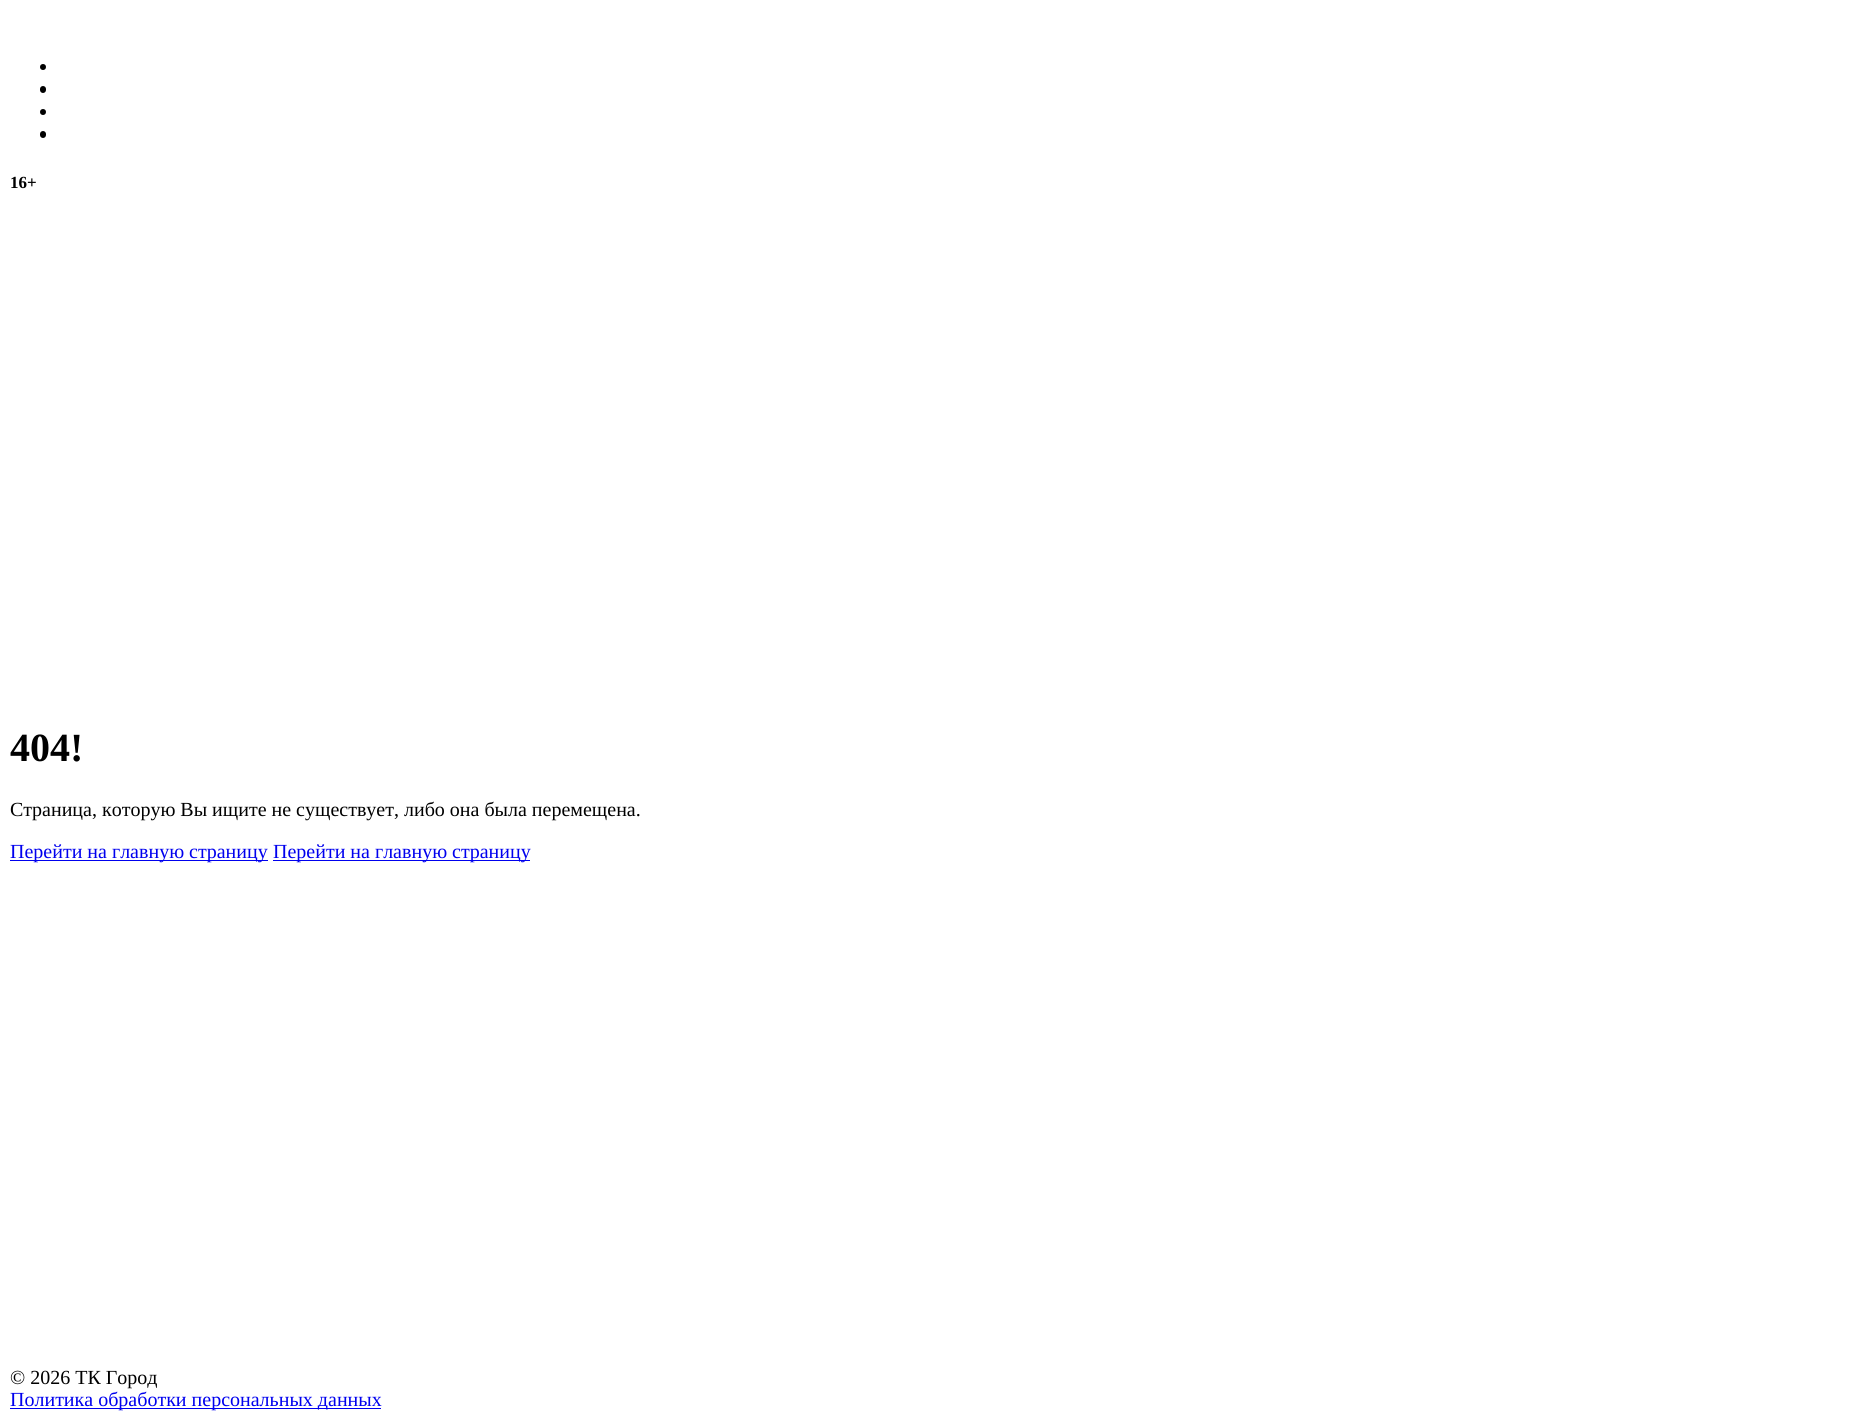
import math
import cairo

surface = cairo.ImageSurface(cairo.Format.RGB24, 1861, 1423)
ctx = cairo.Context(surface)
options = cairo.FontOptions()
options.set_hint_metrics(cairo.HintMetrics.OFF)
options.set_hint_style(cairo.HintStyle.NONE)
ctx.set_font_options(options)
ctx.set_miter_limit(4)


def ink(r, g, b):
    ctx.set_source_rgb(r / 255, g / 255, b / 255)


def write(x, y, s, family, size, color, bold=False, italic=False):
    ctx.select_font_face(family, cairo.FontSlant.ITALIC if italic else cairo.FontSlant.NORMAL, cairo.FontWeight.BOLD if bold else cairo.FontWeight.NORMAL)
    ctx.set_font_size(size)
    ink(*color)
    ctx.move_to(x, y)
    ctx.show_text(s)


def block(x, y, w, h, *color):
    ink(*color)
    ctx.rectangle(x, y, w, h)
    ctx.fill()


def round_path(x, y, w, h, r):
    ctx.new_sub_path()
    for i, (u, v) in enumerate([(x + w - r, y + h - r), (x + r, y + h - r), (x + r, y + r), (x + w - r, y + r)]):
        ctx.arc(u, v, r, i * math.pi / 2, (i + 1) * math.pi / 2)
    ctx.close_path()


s1 = dict(family="Liberation Serif", size=17, color=(0, 0, 0), bold=True)
s2 = dict(family="Liberation Serif", size=40, color=(0, 0, 0), bold=True)
s3 = dict(family="Liberation Serif", size=20, color=(0, 0, 0))
s4 = dict(family="Liberation Serif", size=20, color=(0, 0, 238))

ink(255, 255, 255)
ctx.paint()
ink(0, 0, 0)
ctx.arc(43, 67, 3, 0, 2 * math.pi)
ctx.fill()
round_path(40, 86, 6, 7, 3)
ctx.fill()
ctx.arc(43, 112, 3, 0, 2 * math.pi)
ctx.fill()
round_path(40, 131, 6, 7, 3)
ctx.fill()
write(10, 188, "16+", **s1)
write(10, 761, "404!", **s2)
write(10, 816, "Страница, которую Вы ищите не существует, либо она была перемещена.", **s3)
block(10, 860, 258, 1, 0, 0, 238)
write(10, 858, "Перейти на главную страницу", **s4)
block(273, 860, 257, 1, 0, 0, 238)
write(273, 858, "Перейти на главную страницу", **s4)
write(10, 1384, "© 2026 ТК Город", **s3)
block(10, 1408, 371, 1, 0, 0, 238)
write(10, 1406, "Политика обработки персональных данных", **s4)
surface.write_to_png("screenshot.png")
